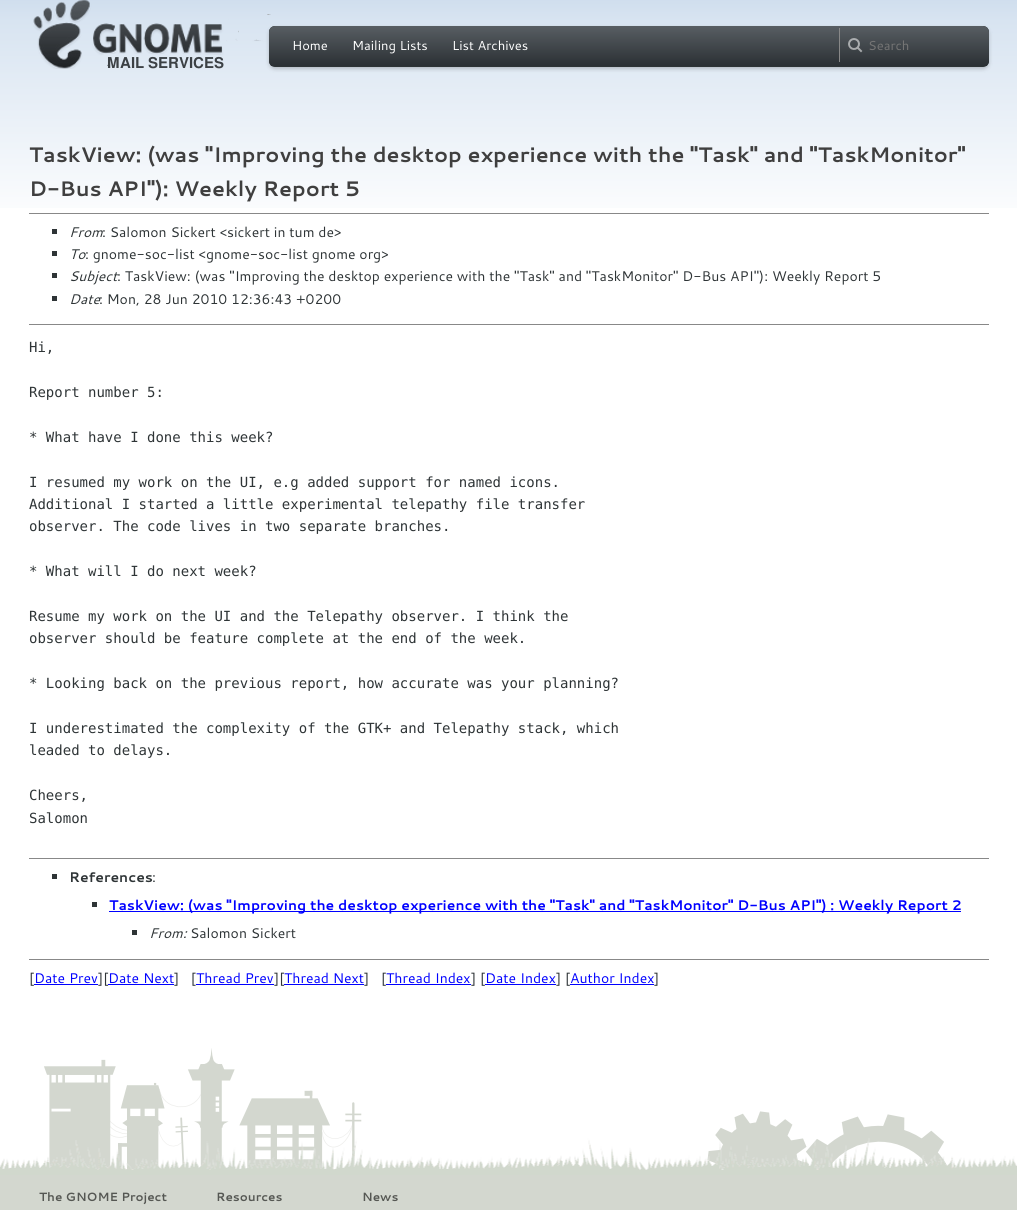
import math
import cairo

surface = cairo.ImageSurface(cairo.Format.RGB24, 1017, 1210)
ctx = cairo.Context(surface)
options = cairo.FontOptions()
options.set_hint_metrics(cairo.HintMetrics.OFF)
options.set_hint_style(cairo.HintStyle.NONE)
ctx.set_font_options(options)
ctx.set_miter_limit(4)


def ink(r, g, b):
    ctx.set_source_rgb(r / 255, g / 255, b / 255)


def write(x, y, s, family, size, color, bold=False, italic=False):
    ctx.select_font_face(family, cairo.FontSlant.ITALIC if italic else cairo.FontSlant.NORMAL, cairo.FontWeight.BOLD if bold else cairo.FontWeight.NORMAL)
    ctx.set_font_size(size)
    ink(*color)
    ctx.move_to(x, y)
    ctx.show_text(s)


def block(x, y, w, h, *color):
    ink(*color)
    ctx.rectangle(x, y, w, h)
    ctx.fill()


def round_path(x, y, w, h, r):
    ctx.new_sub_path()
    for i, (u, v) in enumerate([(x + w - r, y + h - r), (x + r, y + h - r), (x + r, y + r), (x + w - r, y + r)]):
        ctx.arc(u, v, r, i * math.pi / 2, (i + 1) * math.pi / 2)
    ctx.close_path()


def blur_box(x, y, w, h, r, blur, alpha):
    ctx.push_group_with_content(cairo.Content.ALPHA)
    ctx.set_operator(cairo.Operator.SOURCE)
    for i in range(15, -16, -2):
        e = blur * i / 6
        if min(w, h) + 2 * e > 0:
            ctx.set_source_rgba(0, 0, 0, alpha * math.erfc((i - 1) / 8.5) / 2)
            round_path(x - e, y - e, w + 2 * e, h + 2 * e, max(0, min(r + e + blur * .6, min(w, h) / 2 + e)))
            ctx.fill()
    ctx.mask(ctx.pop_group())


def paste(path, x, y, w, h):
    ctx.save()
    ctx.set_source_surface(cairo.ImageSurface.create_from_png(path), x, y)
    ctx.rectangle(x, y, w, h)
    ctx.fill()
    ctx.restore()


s1 = dict(family="Cantarell", size=13, color=(255, 255, 255))
s2 = dict(family="Cantarell", size=13, color=(117, 117, 117))
s3 = dict(family="Cantarell", size=21, color=(63, 63, 63), bold=True)
s4 = dict(family="Cantarell", size=14, color=(46, 52, 54), italic=True)
s5 = dict(family="Cantarell", size=14, color=(46, 52, 54))
s6 = dict(family="DejaVu Sans Mono", size=14, color=(46, 52, 54))
s7 = dict(family="Cantarell", size=14, color=(46, 52, 54), bold=True)
s8 = dict(family="Cantarell", size=14, color=(0, 0, 255), bold=True)
s9 = dict(family="Cantarell", size=14, color=(0, 0, 255))
s10 = dict(family="Cantarell", size=12, color=(85, 87, 83), bold=True)

ink(255, 255, 255)
ctx.paint()
paste("pic1.png", 0, 0, 1017, 208)
paste("pic2.png", 33, 0, 238, 69)
ink(0, 0, 0)
blur_box(269, 28, 720, 41, 6, 2, 0.2)
ink(46, 52, 54)
round_path(269, 26, 720, 41, 6)
ctx.fill()
paste("pic3.png", 269, 26, 720, 40)
write(292, 50, "Home", **s1)
write(352, 50, "Mailing Lists", **s1)
write(452, 50, "List Archives", **s1)
paste("pic4.png", 848, 38, 15, 15)
block(839, 28, 1, 34, 136, 136, 136)
write(868, 50, "Search", **s2)
write(29, 162, "TaskView: (was \"Improving the desktop experience with the \"Task\" and \"TaskMonitor\"", **s3)
write(29, 196, "D-Bus API\"): Weekly Report 5", **s3)
block(29, 213, 960, 1, 136, 136, 136)
block(52, 229, 5, 5, 46, 52, 54)
write(69, 237, "From", **s4)
write(102, 237, ": Salomon Sickert <sickert in tum de>", **s5)
block(52, 251, 5, 5, 46, 52, 54)
write(69, 259, "To", **s4)
write(85, 259, ": gnome-soc-list <gnome-soc-list gnome org>", **s5)
block(52, 273, 5, 5, 46, 52, 54)
write(69, 281, "Subject", **s4)
write(117, 281, ": TaskView: (was \"Improving the desktop experience with the \"Task\" and \"TaskMonitor\" D-Bus API\"): Weekly Report 5", **s5)
block(52, 296, 5, 5, 46, 52, 54)
write(69, 304, "Date", **s4)
write(99, 304, ": Mon, 28 Jun 2010 12:36:43 +0200", **s5)
block(29, 324, 960, 1, 136, 136, 136)
write(29, 352, "Hi,", **s6)
write(29, 397, "Report number 5:", **s6)
write(29, 442, "* What have I done this week?", **s6)
write(29, 487, "I resumed my work on the UI, e.g added support for named icons.", **s6)
write(29, 509, "Additional I started a little experimental telepathy file transfer", **s6)
write(29, 531, "observer. The code lives in two separate branches.", **s6)
write(29, 576, "* What will I do next week?", **s6)
write(29, 621, "Resume my work on the UI and the Telepathy observer. I think the", **s6)
write(29, 643, "observer should be feature complete at the end of the week.", **s6)
write(29, 688, "* Looking back on the previous report, how accurate was your planning?", **s6)
write(29, 733, "I underestimated the complexity of the GTK+ and Telepathy stack, which", **s6)
write(29, 755, "leaded to delays.", **s6)
write(29, 800, "Cheers,", **s6)
write(29, 823, "Salomon", **s6)
block(29, 858, 960, 1, 136, 136, 136)
block(52, 874, 5, 5, 46, 52, 54)
write(69, 882, "References", **s7)
write(152, 882, ":", **s5)
block(92, 902, 5, 5, 46, 52, 54)
block(109, 911, 852, 1, 0, 0, 255)
write(109, 910, "TaskView: (was \"Improving the desktop experience with the \"Task\" and \"TaskMonitor\" D-Bus API\") : Weekly Report 2", **s8)
block(132, 930, 5, 5, 46, 52, 54)
write(149, 938, "From:", **s4)
write(190, 938, "Salomon Sickert", **s5)
block(29, 959, 960, 1, 136, 136, 136)
write(29, 983, "[", **s5)
write(34, 983, "Date Prev", **s9)
block(34, 984, 64, 1, 0, 0, 255)
write(98, 983, "][", **s5)
write(108, 983, "Date Next", **s9)
block(108, 984, 66, 1, 0, 0, 255)
write(174, 983, "]   [", **s5)
write(196, 983, "Thread Prev", **s9)
block(196, 984, 78, 1, 0, 0, 255)
write(274, 983, "][", **s5)
write(284, 983, "Thread Next", **s9)
block(284, 984, 80, 1, 0, 0, 255)
write(364, 983, "]", **s5)
write(381, 983, "[", **s5)
write(386, 983, "Thread Index", **s9)
block(386, 984, 85, 1, 0, 0, 255)
write(471, 983, "] [", **s5)
write(485, 983, "Date Index", **s9)
block(485, 984, 71, 1, 0, 0, 255)
write(556, 983, "] [", **s5)
write(570, 983, "Author Index", **s9)
block(570, 984, 84, 1, 0, 0, 255)
write(654, 983, "]", **s5)
paste("pic5.png", 44, 1048, 918, 121)
paste("pic6.png", 0, 1138, 1017, 37)
block(0, 1175, 1017, 35, 211, 215, 207)
write(39, 1201, "The GNOME Project", **s10)
write(216, 1201, "Resources", **s10)
write(362, 1201, "News", **s10)
surface.write_to_png("screenshot.png")
